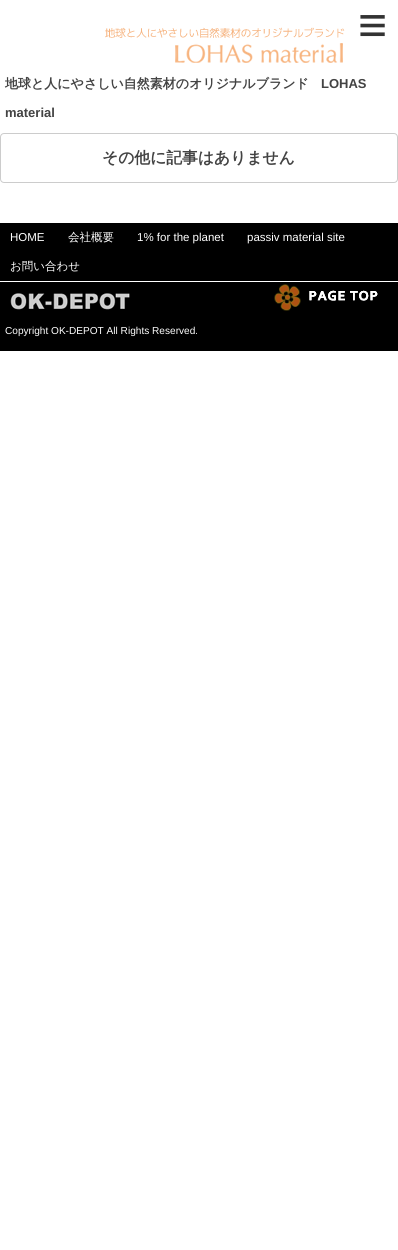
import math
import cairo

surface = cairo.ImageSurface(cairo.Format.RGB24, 398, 1250)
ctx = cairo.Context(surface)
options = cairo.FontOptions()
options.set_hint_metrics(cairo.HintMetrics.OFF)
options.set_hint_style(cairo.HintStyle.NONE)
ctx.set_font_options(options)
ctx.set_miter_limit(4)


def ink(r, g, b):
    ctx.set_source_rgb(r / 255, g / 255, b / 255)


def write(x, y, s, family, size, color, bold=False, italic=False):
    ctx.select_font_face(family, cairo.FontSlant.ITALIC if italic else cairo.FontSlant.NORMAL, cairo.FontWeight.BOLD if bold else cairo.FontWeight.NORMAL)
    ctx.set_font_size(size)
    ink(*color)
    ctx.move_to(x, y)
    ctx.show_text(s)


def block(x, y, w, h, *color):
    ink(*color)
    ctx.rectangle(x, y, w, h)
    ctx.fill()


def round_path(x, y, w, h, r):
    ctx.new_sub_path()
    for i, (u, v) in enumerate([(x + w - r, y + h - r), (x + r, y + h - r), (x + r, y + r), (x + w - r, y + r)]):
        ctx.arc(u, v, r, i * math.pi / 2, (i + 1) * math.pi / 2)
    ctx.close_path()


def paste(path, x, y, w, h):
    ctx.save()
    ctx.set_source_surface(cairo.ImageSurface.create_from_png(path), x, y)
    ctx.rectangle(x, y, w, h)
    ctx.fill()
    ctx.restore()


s1 = dict(family="Liberation Sans", size=50, color=(51, 51, 51))
s2 = dict(family="WenQuanYi Zen Hei", size=13, color=(67, 67, 67), bold=True)
s3 = dict(family="Liberation Sans", size=13, color=(67, 67, 67), bold=True)
s4 = dict(family="WenQuanYi Zen Hei", size=15.8, color=(67, 67, 67), bold=True)
s5 = dict(family="Liberation Sans", size=11.5, color=(255, 255, 255))
s6 = dict(family="WenQuanYi Zen Hei Medium", size=11.5, color=(255, 255, 255))
s7 = dict(family="Liberation Sans", size=10.1, color=(255, 255, 255))

ink(255, 255, 255)
ctx.paint()
write(358, 42, "≡", **s1)
write(5, 88, "地球と人にやさしい自然素材のオリジナルブランド", **s2)
write(321, 88, "LOHAS", **s3)
write(5, 117, "material", **s3)
round_path(0.5, 133.5, 397, 49, 3.5)
ink(204, 204, 204)
ctx.set_line_width(1)
ctx.stroke()
write(102, 163, "その他に記事はありません", **s4)
paste("pic1.png", 105, 27, 240, 36)
block(0, 223, 398, 128, 0, 0, 0)
block(0, 281, 398, 1, 255, 255, 255)
write(10, 241, "HOME", **s5)
write(68, 241, "会社概要", **s6)
write(137, 241, "1% for the planet", **s5)
write(247, 241, "passiv material site", **s5)
write(10, 270, "お問い合わせ", **s6)
paste("pic2.png", 274, 284, 104, 27)
paste("pic3.png", 274, 284, 104, 27)
paste("pic4.png", 10, 293, 120, 17)
write(5, 334, "Copyright OK-DEPOT All Rights Reserved.", **s7)
surface.write_to_png("screenshot.png")
